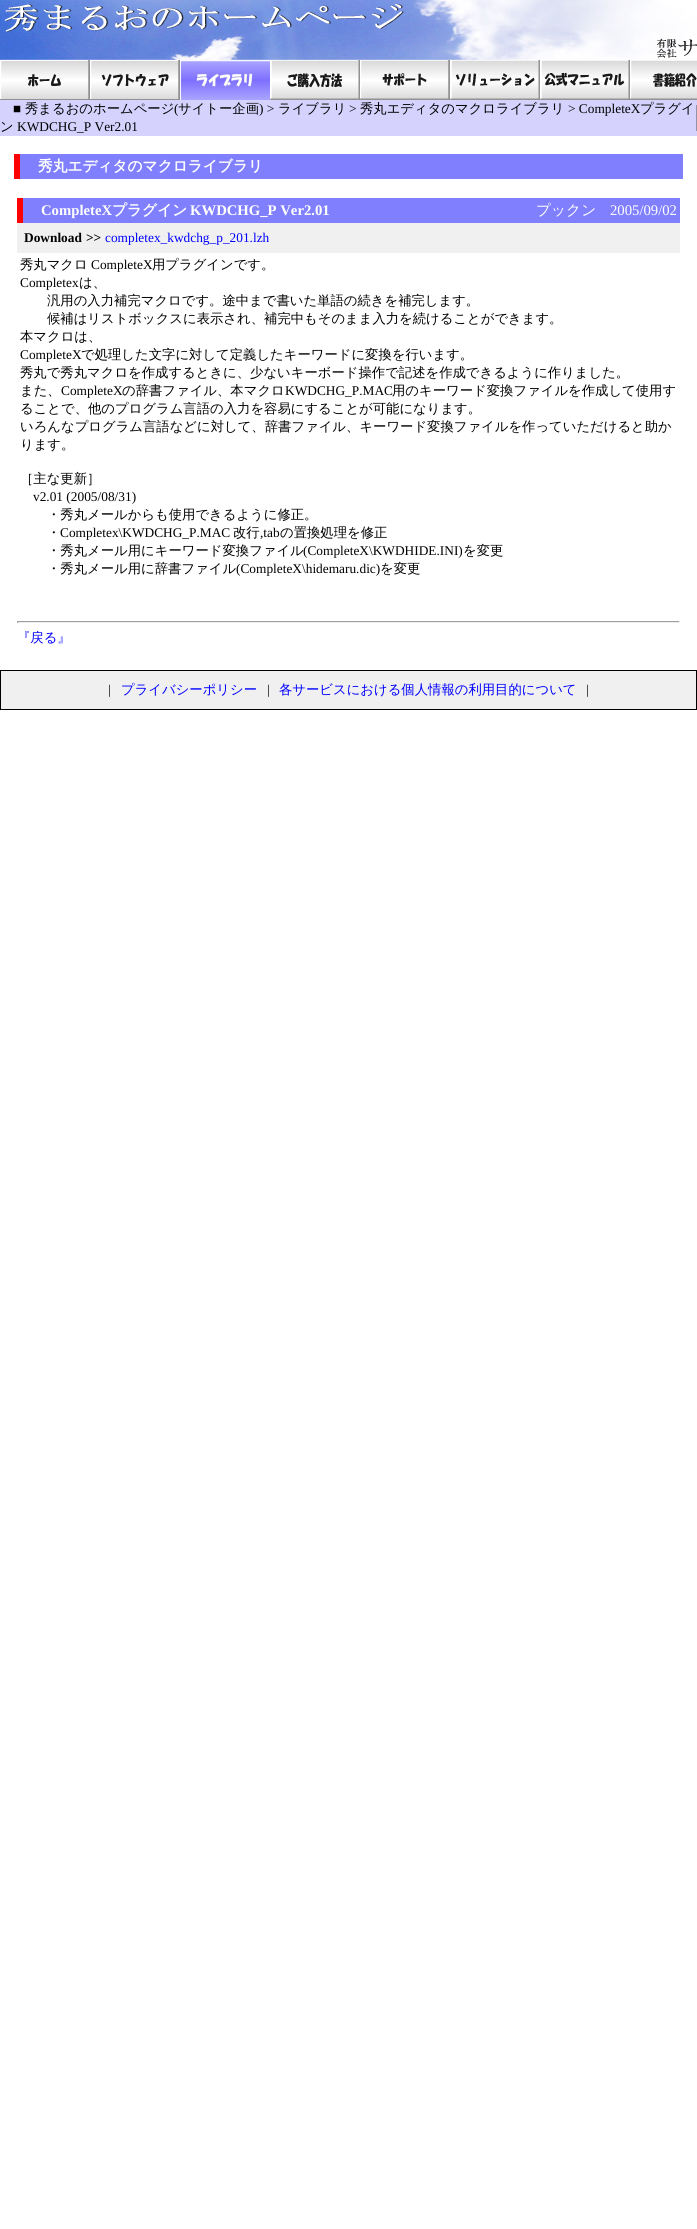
import math
import cairo

surface = cairo.ImageSurface(cairo.Format.RGB24, 697, 2229)
ctx = cairo.Context(surface)
options = cairo.FontOptions()
options.set_hint_metrics(cairo.HintMetrics.OFF)
options.set_hint_style(cairo.HintStyle.NONE)
ctx.set_font_options(options)
ctx.set_miter_limit(4)


def ink(r, g, b):
    ctx.set_source_rgb(r / 255, g / 255, b / 255)


def write(x, y, s, family, size, color, bold=False, italic=False):
    ctx.select_font_face(family, cairo.FontSlant.ITALIC if italic else cairo.FontSlant.NORMAL, cairo.FontWeight.BOLD if bold else cairo.FontWeight.NORMAL)
    ctx.set_font_size(size)
    ink(*color)
    ctx.move_to(x, y)
    ctx.show_text(s)


def block(x, y, w, h, *color):
    ink(*color)
    ctx.rectangle(x, y, w, h)
    ctx.fill()


def paste(path, x, y, w, h):
    ctx.save()
    ctx.set_source_surface(cairo.ImageSurface.create_from_png(path), x, y)
    ctx.rectangle(x, y, w, h)
    ctx.fill()
    ctx.restore()


s1 = dict(family="Liberation Serif", size=13.35, color=(0, 0, 0))
s2 = dict(family="WenQuanYi Zen Hei Medium", size=13.35, color=(0, 0, 0))
s3 = dict(family="WenQuanYi Zen Hei", size=14.7, color=(255, 255, 255), bold=True)
s4 = dict(family="Liberation Serif", size=14.7, color=(255, 255, 255), bold=True)
s5 = dict(family="WenQuanYi Zen Hei Medium", size=14.7, color=(255, 255, 255))
s6 = dict(family="Liberation Serif", size=14.7, color=(255, 255, 255))
s7 = dict(family="Liberation Serif", size=13.35, color=(0, 0, 0), bold=True)
s8 = dict(family="Liberation Serif", size=13.35, color=(0, 0, 255))
s9 = dict(family="WenQuanYi Zen Hei Medium", size=13.35, color=(0, 0, 255))

ink(255, 255, 255)
ctx.paint()
paste("pic1.png", 0, 0, 697, 60)
paste("pic2.png", 0, 60, 90, 40)
paste("pic3.png", 90, 60, 90, 40)
paste("pic4.png", 180, 60, 90, 40)
paste("pic5.png", 270, 60, 90, 40)
paste("pic6.png", 360, 60, 90, 40)
paste("pic7.png", 450, 60, 90, 40)
paste("pic8.png", 540, 60, 90, 40)
paste("pic9.png", 630, 60, 67, 40)
block(0, 100, 697, 36, 213, 210, 253)
write(13, 113, "■", **s1)
write(25, 113, "秀まるおのホームページ", **s2)
write(174, 113, "(", **s1)
write(178, 113, "サイトー企画", **s2)
write(259, 113, ") >", **s1)
write(278, 113, "ライブラリ", **s2)
write(349, 113, ">", **s1)
write(360, 113, "秀丸エディタのマクロライブラリ", **s2)
write(568, 113, "> CompleteX", **s1)
write(640, 113, "プラグイ", **s2)
write(0, 131, "ン", **s2)
write(17, 131, "KWDCHG_P Ver2.01", **s1)
block(696, 105, 1, 26, 146, 146, 170)
block(14, 154, 6, 25, 255, 0, 0)
block(20, 154, 663, 25, 128, 128, 255)
write(38, 171, "秀丸エディタのマクロライブラリ", **s3)
block(17, 198, 6, 25, 255, 0, 0)
block(23, 198, 657, 25, 128, 128, 255)
write(41, 215, "CompleteX", **s4)
write(112, 215, "プラグイン", **s3)
write(190, 215, "KWDCHG_P Ver2.01", **s4)
write(536, 215, "プックン", **s5)
write(610, 215, "2005/09/02", **s6)
block(17, 223, 663, 30, 240, 240, 240)
write(24, 242, "Download", **s7)
write(86, 242, ">>", **s7)
write(105, 242, "completex_kwdchg_p_201.lzh", **s8)
write(20, 269, "秀丸マクロ", **s2)
write(91, 269, "CompleteX", **s1)
write(152, 269, "用プラグインです。", **s2)
write(20, 287, "Completex", **s1)
write(79, 287, "は、", **s2)
write(47, 305, "汎用の入力補完マクロです。途中まで書いた単語の続きを補完します。", **s2)
write(47, 323, "候補はリストボックスに表示され、補完中もそのまま入力を続けることができます。", **s2)
write(20, 341, "本マクロは、", **s2)
write(20, 359, "CompleteX", **s1)
write(81, 359, "で処理した文字に対して定義したキーワードに変換を行います。", **s2)
write(20, 377, "秀丸で秀丸マクロを作成するときに、少ないキーボード操作で記述を作成できるように作りました。", **s2)
write(20, 395, "また、", **s2)
write(61, 395, "CompleteX", **s1)
write(122, 395, "の辞書ファイル、本マクロ", **s2)
write(285, 395, "KWDCHG_P.MAC", **s1)
write(392, 395, "用のキーワード変換ファイルを作成して使用す", **s2)
write(20, 413, "ることで、他のプログラム言語の入力を容易にすることが可能になります。", **s2)
write(20, 431, "いろんなプログラム言語などに対して、辞書ファイル、キーワード変換ファイルを作っていただけると助か", **s2)
write(20, 449, "ります。", **s2)
write(20, 483, "［主な更新］", **s2)
write(33, 501, "v2.01 (2005/08/31)", **s1)
write(47, 519, "・秀丸メールからも使用できるように修正。", **s2)
write(47, 537, "・", **s2)
write(60, 537, "Completex\\KWDCHG_P.MAC", **s1)
write(233, 537, "改行", **s2)
write(260, 537, ",tab", **s1)
write(280, 537, "の置換処理を修正", **s2)
write(47, 555, "・秀丸メール用にキーワード変換ファイル", **s2)
write(303, 555, "(CompleteX\\KWDHIDE.INI)", **s1)
write(463, 555, "を変更", **s2)
write(47, 573, "・秀丸メール用に辞書ファイル", **s2)
write(236, 573, "(CompleteX\\hidemaru.dic)", **s1)
write(380, 573, "を変更", **s2)
block(17, 621, 663, 1, 159, 159, 159)
block(679, 621, 1, 2, 238, 238, 238)
block(17, 622, 663, 1, 238, 238, 238)
block(17, 621, 1, 2, 159, 159, 159)
write(17, 642, "『戻る』", **s9)
block(0, 670, 697, 40, 0, 0, 0)
block(1, 671, 695, 38, 240, 240, 240)
write(108, 694, "|", **s1)
write(121, 694, "プライバシーポリシー", **s9)
write(267, 694, "|", **s1)
write(279, 694, "各サービスにおける個人情報の利用目的について", **s9)
write(586, 694, "|", **s1)
surface.write_to_png("screenshot.png")
